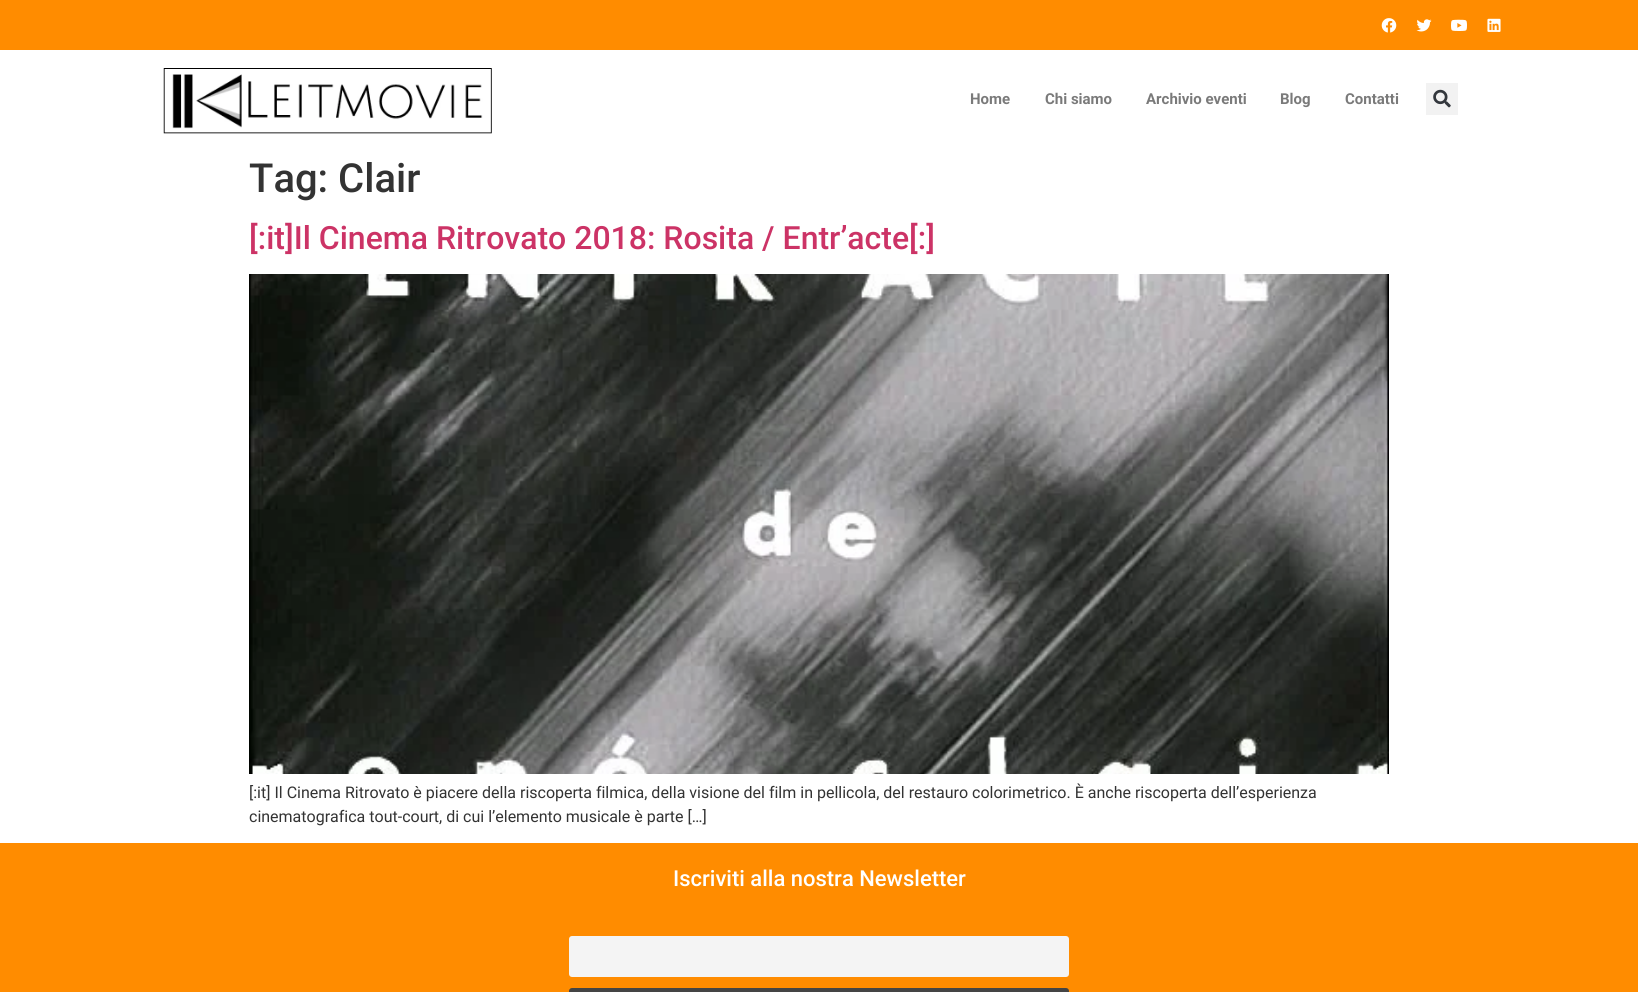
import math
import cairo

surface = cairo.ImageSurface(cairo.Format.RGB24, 1638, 992)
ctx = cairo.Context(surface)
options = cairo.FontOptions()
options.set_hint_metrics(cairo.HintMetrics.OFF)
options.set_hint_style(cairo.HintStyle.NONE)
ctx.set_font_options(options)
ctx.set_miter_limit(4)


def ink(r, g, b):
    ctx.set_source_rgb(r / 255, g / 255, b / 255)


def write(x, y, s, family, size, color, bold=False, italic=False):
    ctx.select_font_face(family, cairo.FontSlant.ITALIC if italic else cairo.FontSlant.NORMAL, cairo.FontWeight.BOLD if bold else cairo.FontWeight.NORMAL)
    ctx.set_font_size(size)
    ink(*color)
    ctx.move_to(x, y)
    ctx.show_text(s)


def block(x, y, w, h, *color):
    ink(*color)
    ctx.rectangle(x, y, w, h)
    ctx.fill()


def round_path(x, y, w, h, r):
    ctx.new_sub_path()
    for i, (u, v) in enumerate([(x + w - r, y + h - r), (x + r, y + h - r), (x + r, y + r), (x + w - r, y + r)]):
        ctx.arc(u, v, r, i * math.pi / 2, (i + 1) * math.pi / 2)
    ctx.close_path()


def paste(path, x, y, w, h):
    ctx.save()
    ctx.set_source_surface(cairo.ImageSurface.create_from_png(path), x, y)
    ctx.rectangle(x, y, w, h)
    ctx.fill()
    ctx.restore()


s1 = dict(family="Roboto", size=15, color=(122, 122, 122), bold=True)
s2 = dict(family="Roboto Medium", size=40, color=(51, 51, 51))
s3 = dict(family="Roboto Medium", size=32, color=(204, 51, 102))
s4 = dict(family="Roboto", size=16, color=(51, 51, 51))
s5 = dict(family="Roboto Medium", size=22, color=(255, 255, 255))

ink(255, 255, 255)
ctx.paint()
block(0, 0, 1638, 50, 255, 140, 0)
paste("pic1.png", 1381, 18, 16, 15)
paste("pic2.png", 1416, 19, 16, 13)
paste("pic3.png", 1451, 19, 16, 12)
paste("pic4.png", 1487, 18, 14, 14)
paste("pic5.png", 163, 68, 329, 66)
write(970, 104, "Home", **s1)
write(1045, 104, "Chi siamo", **s1)
write(1146, 104, "Archivio eventi", **s1)
write(1280, 104, "Blog", **s1)
write(1345, 104, "Contatti", **s1)
block(1426, 83, 32, 32, 242, 242, 242)
paste("pic6.png", 1433, 89, 18, 19)
write(249, 192, "Tag: Clair", **s2)
write(249, 249, "[:it]Il Cinema Ritrovato 2018: Rosita / Entr’acte[:]", **s3)
paste("pic7.png", 249, 274, 1140, 500)
write(249, 798, "[:it] Il Cinema Ritrovato è piacere della riscoperta filmica, della visione del film in pellicola, del restauro colorimetrico. È anche riscoperta dell’esperienza", **s4)
write(249, 822, "cinematografica tout-court, di cui l’elemento musicale è parte […]", **s4)
block(0, 843, 1638, 149, 255, 140, 0)
write(673, 886, "Iscriviti alla nostra Newsletter", **s5)
ink(244, 244, 244)
round_path(569, 936, 500, 41, 3)
ctx.fill()
ink(68, 68, 68)
round_path(569, 988, 500, 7, 3)
ctx.fill()
surface.write_to_png("screenshot.png")
